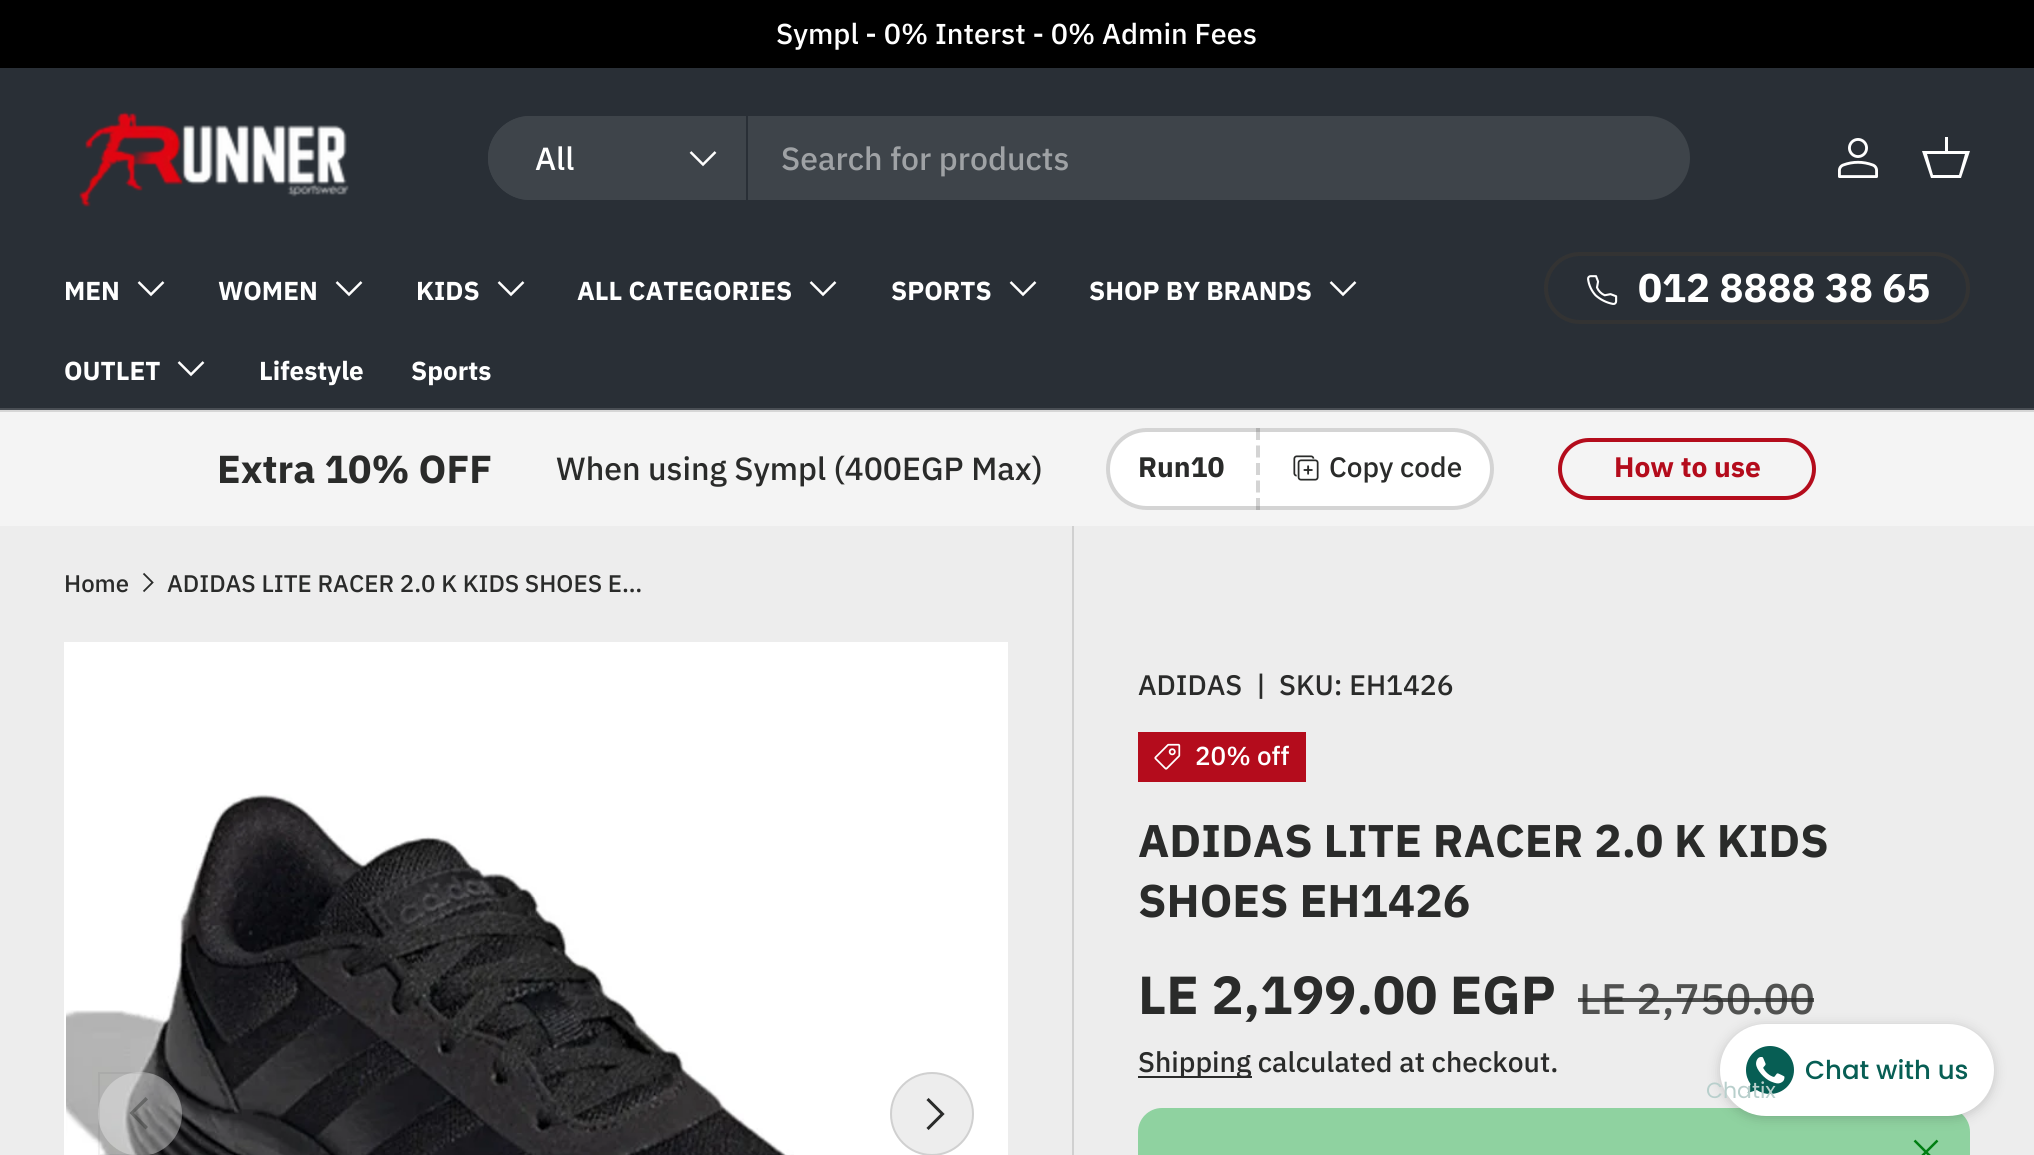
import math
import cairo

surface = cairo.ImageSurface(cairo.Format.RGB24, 2034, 1155)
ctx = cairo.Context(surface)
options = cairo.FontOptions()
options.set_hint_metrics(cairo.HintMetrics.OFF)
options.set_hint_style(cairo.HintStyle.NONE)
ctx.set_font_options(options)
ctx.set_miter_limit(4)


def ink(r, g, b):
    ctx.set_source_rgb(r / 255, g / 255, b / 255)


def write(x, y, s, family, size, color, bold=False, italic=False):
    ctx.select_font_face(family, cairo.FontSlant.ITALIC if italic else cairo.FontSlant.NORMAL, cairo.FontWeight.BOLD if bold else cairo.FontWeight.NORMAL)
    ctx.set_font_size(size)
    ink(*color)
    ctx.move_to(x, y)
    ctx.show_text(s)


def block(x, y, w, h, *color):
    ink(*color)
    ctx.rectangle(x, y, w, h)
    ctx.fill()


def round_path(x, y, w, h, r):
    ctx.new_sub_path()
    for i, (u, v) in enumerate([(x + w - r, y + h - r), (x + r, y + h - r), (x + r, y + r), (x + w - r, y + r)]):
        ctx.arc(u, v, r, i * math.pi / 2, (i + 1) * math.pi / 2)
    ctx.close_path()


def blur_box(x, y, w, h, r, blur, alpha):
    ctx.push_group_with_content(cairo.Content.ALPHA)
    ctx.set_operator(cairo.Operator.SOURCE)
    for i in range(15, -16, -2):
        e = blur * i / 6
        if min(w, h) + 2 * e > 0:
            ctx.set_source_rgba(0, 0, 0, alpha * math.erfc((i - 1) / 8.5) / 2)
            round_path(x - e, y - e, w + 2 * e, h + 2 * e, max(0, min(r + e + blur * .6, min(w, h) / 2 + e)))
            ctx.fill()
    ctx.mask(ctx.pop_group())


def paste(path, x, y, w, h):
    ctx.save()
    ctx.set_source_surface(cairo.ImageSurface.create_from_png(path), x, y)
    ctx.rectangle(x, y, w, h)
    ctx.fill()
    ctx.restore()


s1 = dict(family="IBM Plex Sans Medium", size=28.75, color=(255, 255, 255))
s2 = dict(family="IBM Plex Sans Medium", size=32, color=(255, 255, 255))
s3 = dict(family="IBM Plex Sans Medium", size=32, color=(159, 162, 165))
s4 = dict(family="IBM Plex Sans", size=26, color=(255, 255, 255), bold=True)
s5 = dict(family="IBM Plex Sans", size=40, color=(255, 255, 255), bold=True)
s6 = dict(family="IBM Plex Sans", size=39, color=(42, 43, 42), bold=True)
s7 = dict(family="IBM Plex Sans Medium", size=32, color=(42, 43, 42))
s8 = dict(family="IBM Plex Sans", size=28.2, color=(42, 43, 42), bold=True)
s9 = dict(family="IBM Plex Sans Medium", size=28, color=(42, 43, 42))
s10 = dict(family="IBM Plex Sans", size=28.2, color=(180, 12, 28), bold=True)
s11 = dict(family="IBM Plex Sans Medium", size=24, color=(42, 43, 42))
s12 = dict(family="IBM Plex Sans Medium", size=28.2, color=(42, 43, 42))
s13 = dict(family="IBM Plex Sans Medium", size=26, color=(255, 255, 255))
s14 = dict(family="IBM Plex Sans", size=45.75, color=(42, 43, 42), bold=True)
s15 = dict(family="IBM Plex Sans", size=53.5, color=(42, 43, 42), bold=True)
s16 = dict(family="IBM Plex Sans Medium", size=42.75, color=(81, 82, 81))
s17 = dict(family="Poppins Medium", size=26, color=(7, 94, 84))
s18 = dict(family="Poppins", size=22, color=(184, 207, 204))

ink(237, 237, 237)
ctx.paint()
block(0, 0, 2034, 68, 0, 0, 0)
write(776, 44, "Sympl - 0% Interst - 0% Admin Fees", **s1)
block(0, 68, 2034, 340, 41, 47, 54)
block(0, 408, 2034, 2, 73, 78, 84)
paste("pic1.png", 79, 111, 270, 96)
ink(62, 68, 74)
round_path(488, 116, 1202, 84, 42)
ctx.fill()
ctx.new_path()
ctx.move_to(530, 116)
ctx.line_to(748, 116)
ctx.line_to(748, 200)
ctx.line_to(530, 200)
ctx.curve_to(507, 200, 488, 181, 488, 158)
ctx.curve_to(488, 135, 507, 116, 530, 116)
ctx.close_path()
ctx.fill()
block(746, 116, 2, 84, 41, 47, 54)
write(535, 170, "All", **s2)
ctx.new_path()
ctx.move_to(715.5, 152)
ctx.line_to(703, 164.5)
ctx.line_to(690.5, 152)
ctx.set_line_width(2.5)
ctx.stroke()
write(781, 170, "Search for products", **s3)
paste("pic2.png", 1838, 138, 40, 40)
ink(255, 255, 255)
ctx.new_path()
ctx.move_to(1945, 151)
ctx.line_to(1945, 137)
ctx.line_to(1948, 137)
ctx.line_to(1948, 151)
ctx.line_to(1970, 151)
ctx.line_to(1961, 178)
ctx.line_to(1931, 178)
ctx.line_to(1922, 151)
ctx.close_path()
ctx.move_to(1927, 154)
ctx.line_to(1933, 175)
ctx.line_to(1959, 175)
ctx.line_to(1965, 154)
ctx.close_path()
ctx.fill()
write(64, 300, "MEN", **s4)
ctx.new_path()
ctx.move_to(163.5, 282)
ctx.line_to(151, 294.5)
ctx.line_to(138.5, 282)
ctx.stroke()
write(218, 300, "WOMEN", **s4)
ctx.new_path()
ctx.move_to(361.5, 282)
ctx.line_to(349, 294.5)
ctx.line_to(336.5, 282)
ctx.stroke()
write(416, 300, "KIDS", **s4)
ctx.new_path()
ctx.move_to(523.5, 282)
ctx.line_to(511, 294.5)
ctx.line_to(498.5, 282)
ctx.stroke()
write(577, 300, "ALL CATEGORIES", **s4)
ctx.new_path()
ctx.move_to(835.5, 282)
ctx.line_to(823, 294.5)
ctx.line_to(810.5, 282)
ctx.stroke()
write(891, 300, "SPORTS", **s4)
ctx.new_path()
ctx.move_to(1035.5, 282)
ctx.line_to(1023, 294.5)
ctx.line_to(1010.5, 282)
ctx.stroke()
write(1089, 300, "SHOP BY BRANDS", **s4)
ctx.new_path()
ctx.move_to(1355.5, 282)
ctx.line_to(1343, 294.5)
ctx.line_to(1330.5, 282)
ctx.stroke()
write(64, 380, "OUTLET", **s4)
ctx.new_path()
ctx.move_to(203.5, 362)
ctx.line_to(191, 374.5)
ctx.line_to(178.5, 362)
ctx.stroke()
write(259, 380, "Lifestyle", **s4)
write(411, 380, "Sports", **s4)
round_path(1546, 254, 422, 68, 34)
ink(51, 51, 51)
ctx.set_line_width(4)
ctx.stroke()
paste("pic3.png", 1587, 275, 31, 30)
write(1638, 302, "012 8888 38 65", **s5)
block(0, 412, 2034, 114, 244, 244, 244)
block(0, 410, 2034, 2, 214, 214, 214)
write(217, 483, "Extra 10% OFF", **s6)
write(556, 480, "When using Sympl (400EGP Max)", **s7)
ink(255, 255, 255)
round_path(1106, 428, 388, 82, 41)
ctx.fill()
round_path(1108, 430, 384, 78, 39)
ctx.set_source_rgba(0.165, 0.169, 0.165, 0.2)
ctx.stroke()
write(1138, 477, "Run10", **s8)
ctx.new_path()
ctx.move_to(1258, 428)
ctx.line_to(1258, 510)
ctx.set_source_rgba(0.165, 0.169, 0.165, 0.2)
ctx.set_dash([12, 5.5])
ctx.stroke()
paste("pic4.png", 1293, 455, 26, 26)
write(1329, 477, "Copy code", **s9)
round_path(1560, 440, 254, 58, 29)
ink(180, 12, 28)
ctx.set_dash([])
ctx.stroke()
write(1614, 477, "How to use", **s10)
write(64, 592, "Home", **s11)
ctx.new_path()
ctx.move_to(143.5, 573.5)
ctx.line_to(152.5, 582.5)
ctx.line_to(143.5, 591.5)
ctx.set_line_width(1.8)
ctx.stroke()
write(167, 592, "ADIDAS LITE RACER 2.0 K KIDS SHOES E…", **s11)
block(64, 642, 944, 513, 255, 255, 255)
paste("pic5.png", 66, 794, 728, 361)
ctx.set_source_rgba(0.929, 0.929, 0.929, 0.4)
ctx.arc(140, 1114, 42, 0, 2 * math.pi)
ctx.fill()
ctx.rectangle(99, 1073, 82, 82)
ctx.set_source_rgba(0.165, 0.169, 0.165, 0.06)
ctx.set_line_width(2)
ctx.stroke()
ctx.set_source_rgba(0.165, 0.169, 0.165, 0.4)
ctx.new_path()
ctx.move_to(129.5, 1113)
ctx.line_to(145.5, 1097)
ctx.line_to(148, 1099.5)
ctx.line_to(134, 1113)
ctx.line_to(148, 1127)
ctx.line_to(145.5, 1129.5)
ctx.close_path()
ctx.fill()
ink(237, 237, 237)
ctx.arc(932, 1114, 42, 0, 2 * math.pi)
ctx.fill()
ctx.arc(932, 1114, 41, 0, 2 * math.pi)
ctx.set_source_rgba(0.165, 0.169, 0.165, 0.15)
ctx.stroke()
ctx.new_path()
ctx.move_to(927.5, 1099)
ctx.line_to(942.5, 1114)
ctx.line_to(927.5, 1129)
ink(42, 43, 42)
ctx.set_line_width(3)
ctx.stroke()
block(1072, 526, 2, 629, 208, 208, 208)
write(1138, 695, "ADIDAS", **s12)
write(1256, 695, "|", **s12)
write(1279, 695, "SKU: EH1426", **s12)
block(1138, 732, 168, 50, 180, 12, 28)
paste("pic6.png", 1154, 743, 27, 27)
write(1195, 765, "20% off", **s13)
write(1138, 857, "ADIDAS LITE RACER 2.0 K KIDS", **s14)
write(1138, 917, "SHOES EH1426", **s14)
write(1138, 1014, "LE 2,199.00 EGP", **s15)
write(1579, 1014, "LE 2,750.00", **s16)
ctx.set_source_rgba(0.165, 0.169, 0.165, 0.8)
ctx.rectangle(1578, 998, 236, 4)
ctx.fill()
block(1138, 1076, 114, 2, 42, 43, 42)
write(1138, 1072, "Shipping calculated at checkout.", **s12)
ink(143, 210, 160)
round_path(1138, 1108, 832, 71, 24)
ctx.fill()
ctx.new_path()
ctx.move_to(1914.5, 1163.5)
ctx.line_to(1937.5, 1140.5)
ctx.move_to(1914.5, 1140.5)
ctx.line_to(1937.5, 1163.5)
ink(0, 126, 18)
ctx.set_line_width(2.5)
ctx.set_line_join(cairo.LineJoin.ROUND)
ctx.stroke()
ink(27, 27, 27)
blur_box(1720, 1026, 274, 92, 46, 6, 0.2)
ink(255, 255, 255)
round_path(1721, 1025, 272, 90, 45)
ctx.fill_preserve()
ctx.set_line_width(2)
ctx.set_line_join(cairo.LineJoin.MITER)
ctx.stroke()
paste("pic7.png", 1746, 1046, 48, 48)
write(1805, 1079, "Chat with us", **s17)
write(1706, 1098, "Chatix", **s18)
surface.write_to_png("screenshot.png")
